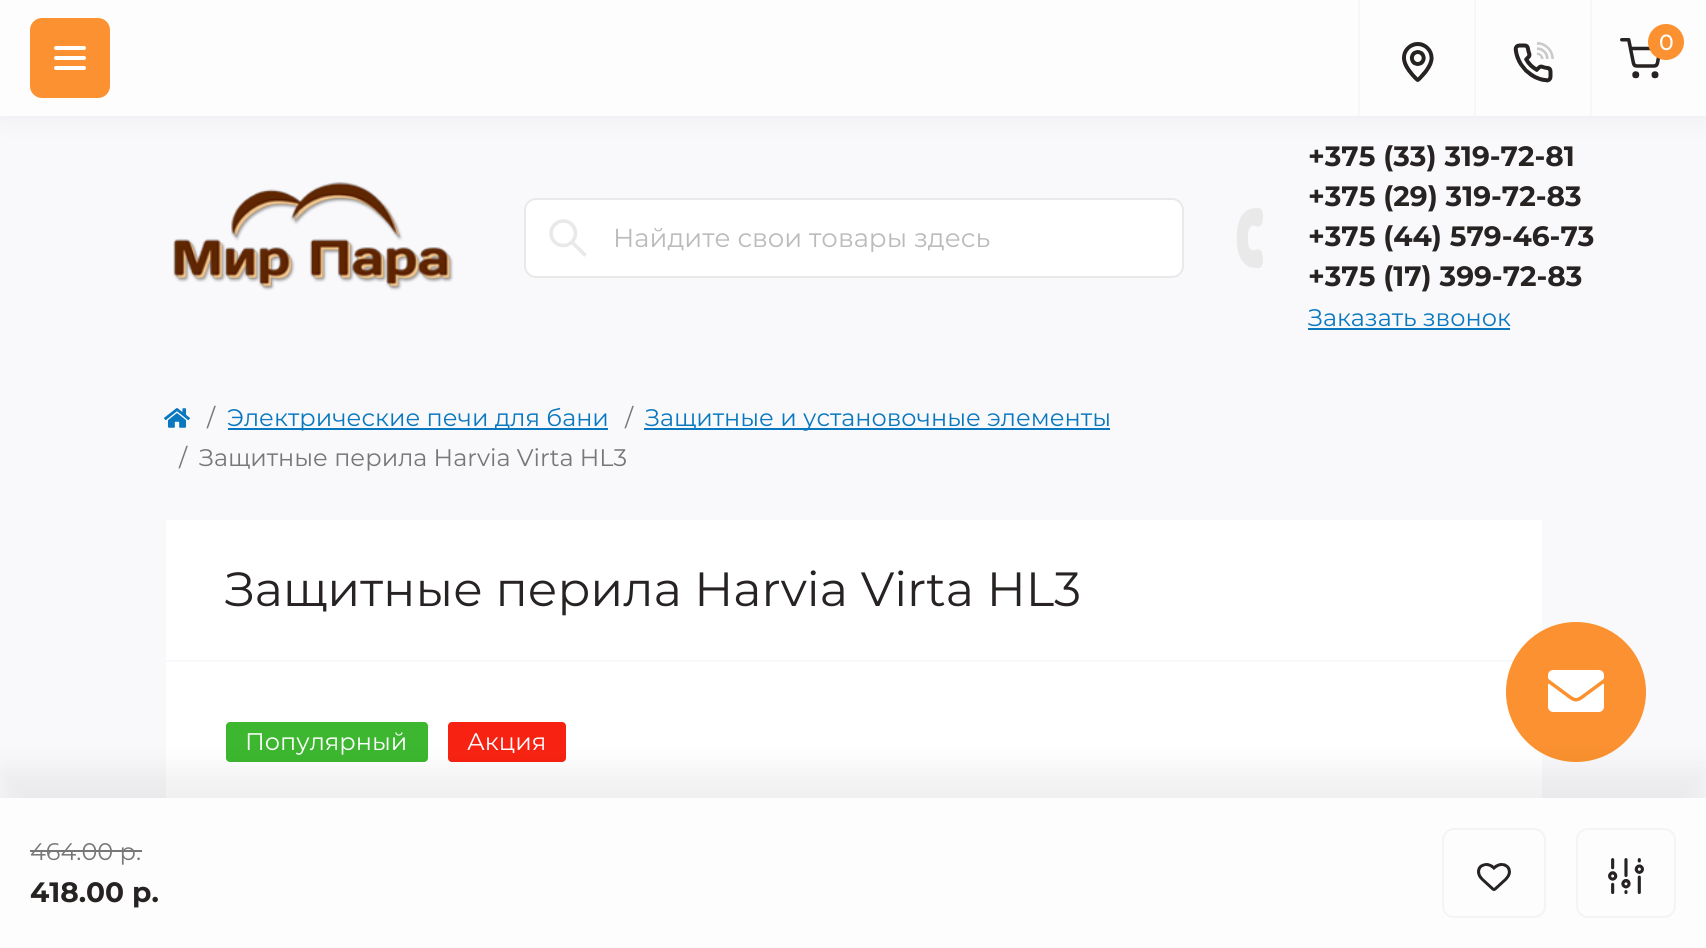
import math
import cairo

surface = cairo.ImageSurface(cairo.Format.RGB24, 1706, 948)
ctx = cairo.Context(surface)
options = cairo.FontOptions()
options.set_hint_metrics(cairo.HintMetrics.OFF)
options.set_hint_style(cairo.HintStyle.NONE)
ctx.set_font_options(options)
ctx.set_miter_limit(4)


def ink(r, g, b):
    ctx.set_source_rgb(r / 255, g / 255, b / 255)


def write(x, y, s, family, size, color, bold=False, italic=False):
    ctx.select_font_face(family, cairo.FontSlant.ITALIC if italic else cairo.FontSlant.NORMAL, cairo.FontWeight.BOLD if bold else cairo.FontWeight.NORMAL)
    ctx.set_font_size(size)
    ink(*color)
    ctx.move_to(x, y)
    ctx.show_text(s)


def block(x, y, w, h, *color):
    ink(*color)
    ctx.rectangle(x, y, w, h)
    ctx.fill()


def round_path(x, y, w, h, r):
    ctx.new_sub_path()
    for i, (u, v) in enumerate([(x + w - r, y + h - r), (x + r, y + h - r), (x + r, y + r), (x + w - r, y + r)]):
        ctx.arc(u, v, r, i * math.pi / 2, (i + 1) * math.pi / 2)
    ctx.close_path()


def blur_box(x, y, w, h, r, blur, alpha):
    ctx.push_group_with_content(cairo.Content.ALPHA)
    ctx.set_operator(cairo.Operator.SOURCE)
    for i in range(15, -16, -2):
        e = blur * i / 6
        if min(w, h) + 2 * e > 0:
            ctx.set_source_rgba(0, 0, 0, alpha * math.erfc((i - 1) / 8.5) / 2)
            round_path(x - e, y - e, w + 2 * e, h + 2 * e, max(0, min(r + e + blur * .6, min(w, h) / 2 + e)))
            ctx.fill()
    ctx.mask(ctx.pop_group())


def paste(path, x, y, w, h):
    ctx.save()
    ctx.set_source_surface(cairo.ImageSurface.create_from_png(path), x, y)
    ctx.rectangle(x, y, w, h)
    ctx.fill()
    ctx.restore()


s1 = dict(family="Montserrat Medium", size=22, color=(255, 255, 255))
s2 = dict(family="Montserrat", size=26, color=(187, 187, 187))
s3 = dict(family="Montserrat", size=28, color=(39, 35, 35), bold=True)
s4 = dict(family="Montserrat", size=24, color=(10, 120, 191))
s5 = dict(family="Montserrat", size=24, color=(119, 119, 119))
s6 = dict(family="Montserrat", size=48, color=(39, 35, 35))
s7 = dict(family="Montserrat", size=24, color=(255, 255, 255))

ink(249, 249, 252)
ctx.paint()
ink(0, 0, 0)
blur_box(0, 0, 1706, 116, 0, 15, 0.06)
block(0, 0, 1706, 116, 253, 253, 253)
ink(251, 145, 48)
round_path(30, 18, 80, 80, 12)
ctx.fill()
ink(255, 255, 255)
round_path(54, 46, 32, 4, 2)
ctx.fill()
round_path(54, 56, 32, 4, 2)
ctx.fill()
round_path(54, 66, 32, 4, 2)
ctx.fill()
block(1358, 0, 2, 116, 247, 247, 247)
paste("pic1.png", 1402, 42, 32, 40)
block(1474, 0, 2, 116, 247, 247, 247)
paste("pic2.png", 1513, 42, 41, 41)
block(1590, 0, 2, 116, 247, 247, 247)
paste("pic3.png", 1620, 38, 40, 41)
ink(251, 145, 48)
ctx.arc(1666, 42, 18, 0, 2 * math.pi)
ctx.fill()
write(1659, 50, "0", **s1)
paste("pic4.png", 173, 182, 281, 109)
round_path(525, 199, 658, 78, 11)
ctx.fill_preserve()
ink(233, 233, 233)
ctx.stroke()
paste("pic5.png", 549, 219, 38, 38)
write(613, 247, "Найдите свои товары здесь", **s2)
paste("pic6.png", 1236, 208, 27, 60)
write(1308, 166, "+375 (33) 319-72-81", **s3)
write(1308, 206, "+375 (29) 319-72-83", **s3)
write(1308, 246, "+375 (44) 579-46-73", **s3)
write(1308, 286, "+375 (17) 399-72-83", **s3)
write(1308, 326, "Заказать звонок", **s4)
block(1308, 328, 202, 2, 10, 120, 191)
paste("pic7.png", 164, 408, 26, 20)
write(207, 426, "/", **s5)
block(228, 428, 380, 2, 10, 120, 191)
write(227, 426, "Электрические печи для бани", **s4)
write(625, 426, "/", **s5)
block(644, 428, 466, 2, 10, 120, 191)
write(645, 426, "Защитные и установочные элементы", **s4)
write(179, 466, "/", **s5)
write(199, 466, "Защитные перила Harvia Virta HL3", **s5)
ink(255, 255, 255)
round_path(165, 519, 1378, 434, 3)
ctx.fill_preserve()
ink(249, 249, 252)
ctx.stroke()
block(166, 660, 1348, 2, 249, 249, 252)
write(225, 606, "Защитные перила Harvia Virta HL3", **s6)
ink(60, 183, 47)
round_path(226, 722, 202, 40, 4)
ctx.fill()
write(245, 750, "Популярный", **s7)
ink(248, 34, 18)
round_path(448, 722, 118, 40, 4)
ctx.fill()
write(467, 750, "Акция", **s7)
ink(251, 145, 48)
ctx.new_path()
ctx.arc(1576, 692, 70, 0, 2 * math.pi)
ctx.fill()
ink(0, 0, 0)
blur_box(0, 768, 1706, 150, 0, 15, 0.06)
block(0, 798, 1706, 150, 253, 253, 253)
write(30, 860, "464.00 р.", **s5)
block(30, 850, 112, 2, 119, 119, 119)
write(30, 902, "418.00 р.", **s3)
round_path(1443, 829, 102, 88, 11)
ink(244, 244, 244)
ctx.stroke()
paste("pic8.png", 1477, 863, 34, 28)
round_path(1577, 829, 98, 88, 11)
ctx.stroke()
paste("pic9.png", 1608, 858, 36, 36)
paste("pic10.png", 1548, 670, 56, 42)
surface.write_to_png("screenshot.png")
